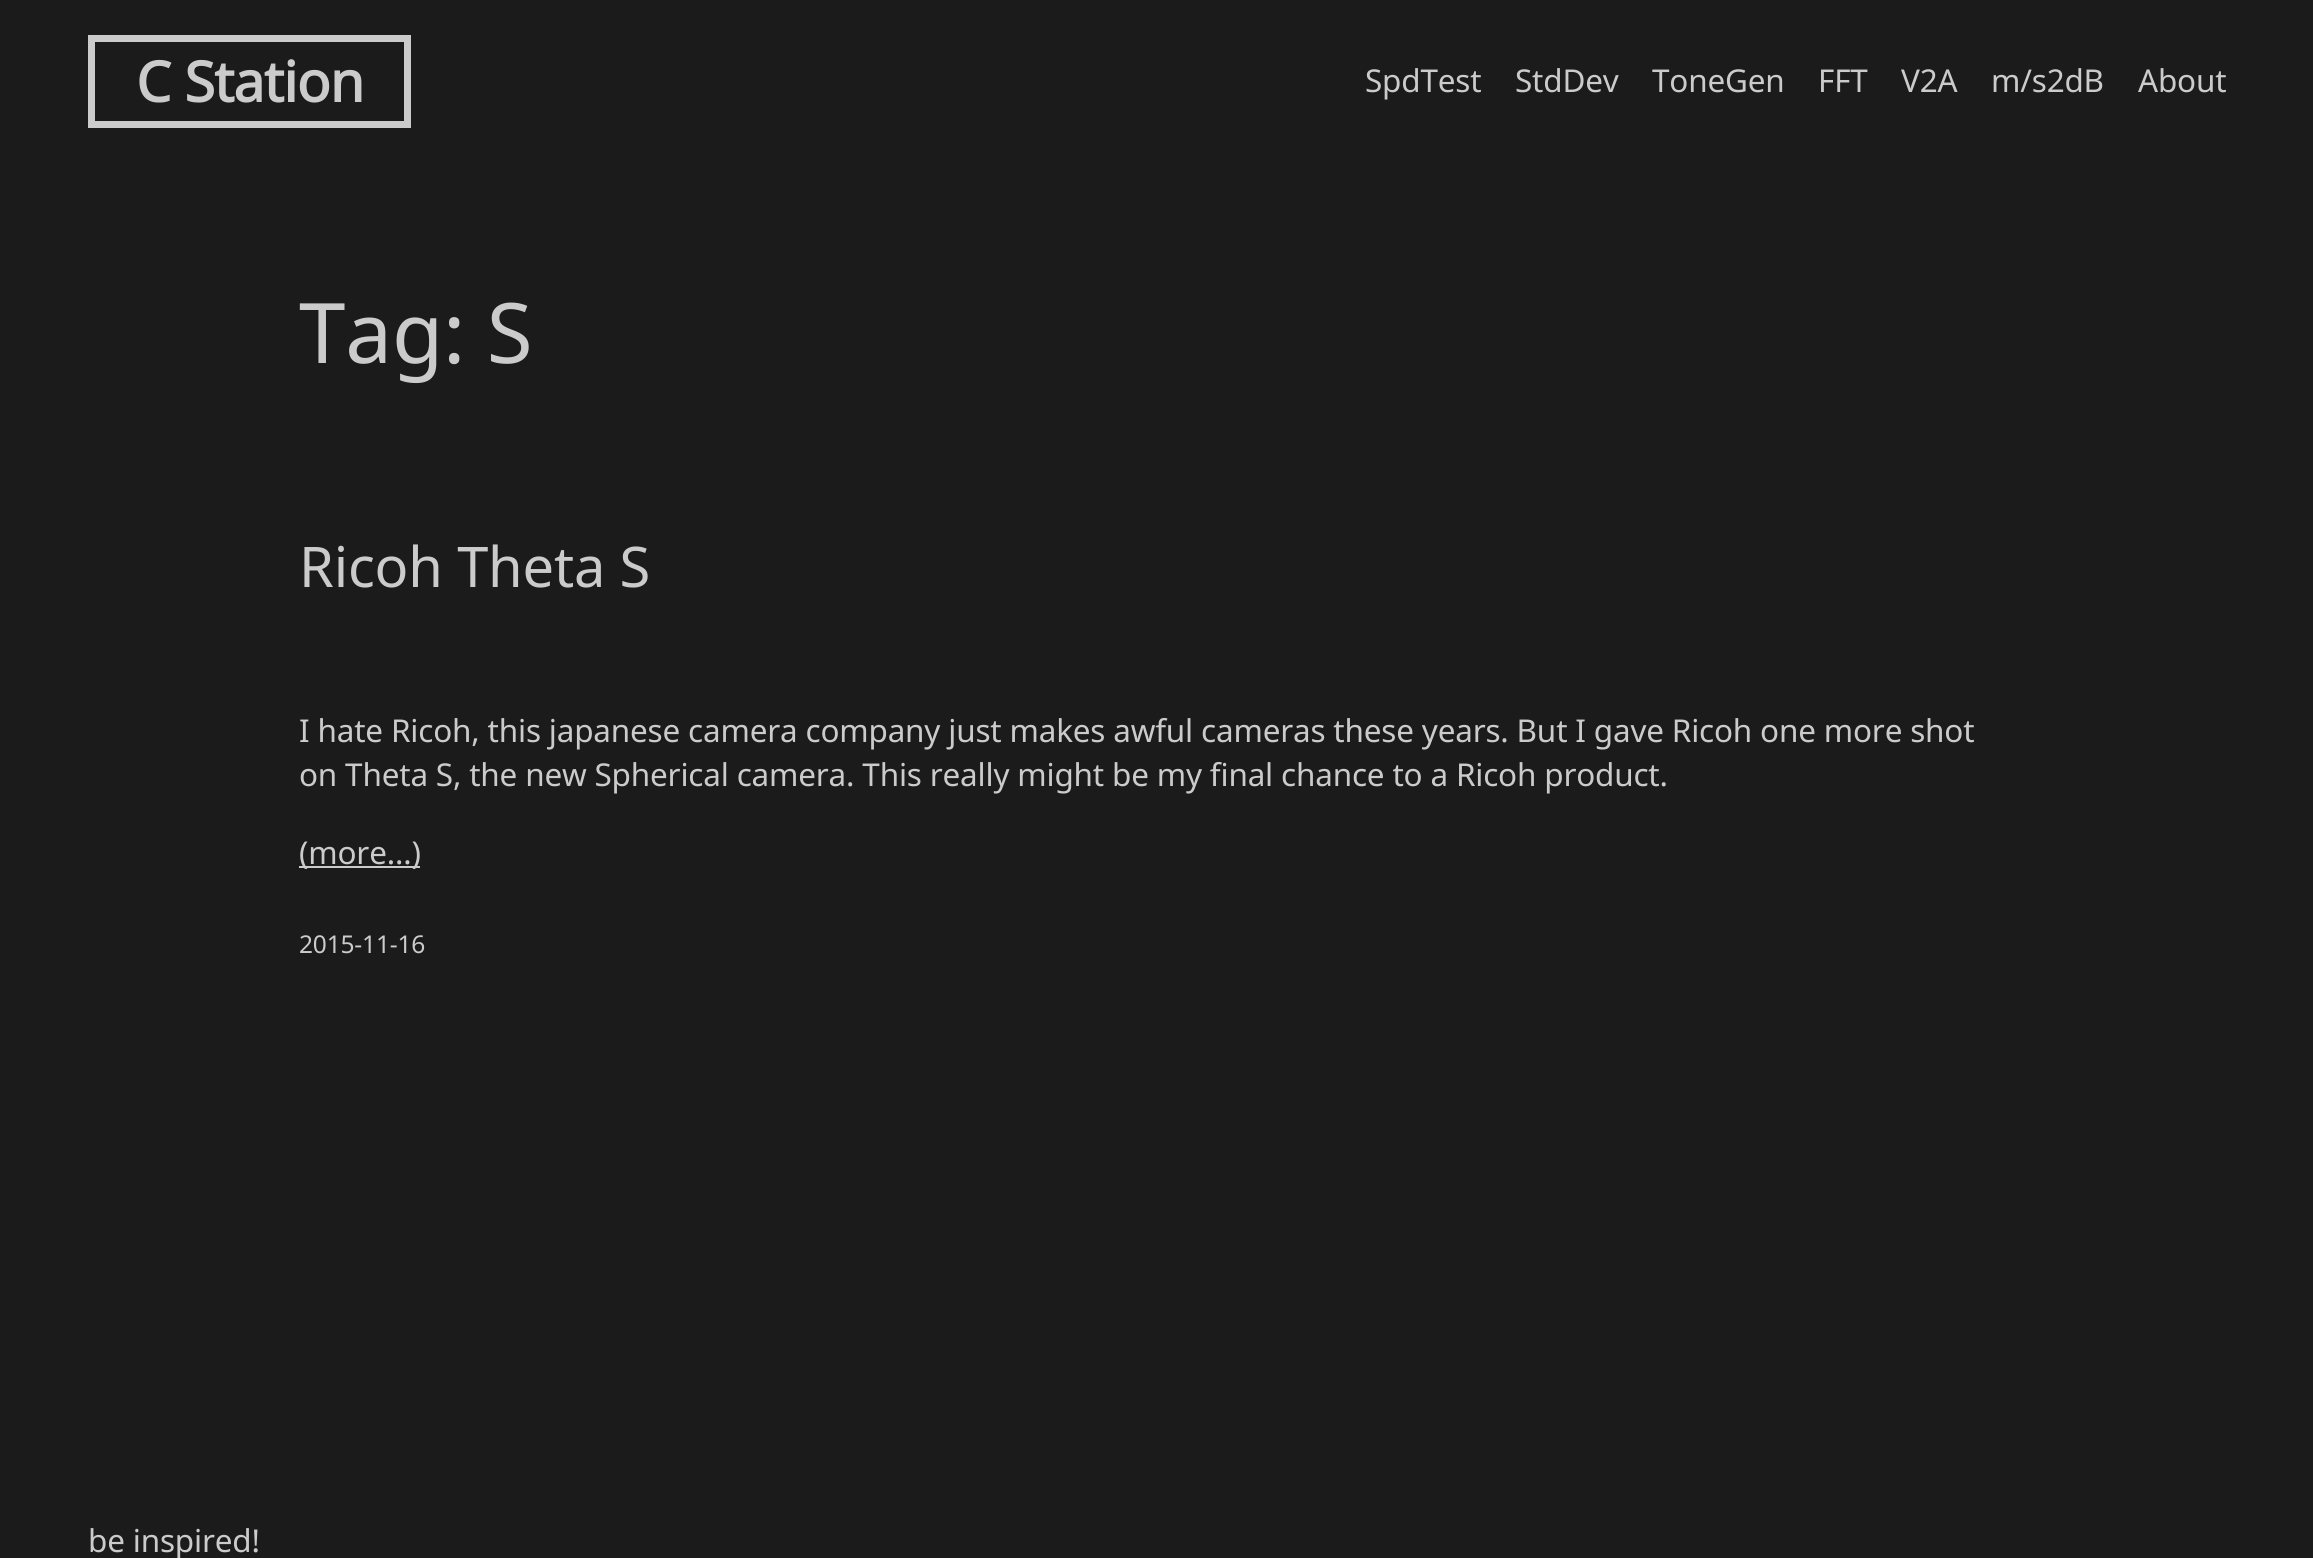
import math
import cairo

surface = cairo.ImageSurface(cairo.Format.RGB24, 2313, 1558)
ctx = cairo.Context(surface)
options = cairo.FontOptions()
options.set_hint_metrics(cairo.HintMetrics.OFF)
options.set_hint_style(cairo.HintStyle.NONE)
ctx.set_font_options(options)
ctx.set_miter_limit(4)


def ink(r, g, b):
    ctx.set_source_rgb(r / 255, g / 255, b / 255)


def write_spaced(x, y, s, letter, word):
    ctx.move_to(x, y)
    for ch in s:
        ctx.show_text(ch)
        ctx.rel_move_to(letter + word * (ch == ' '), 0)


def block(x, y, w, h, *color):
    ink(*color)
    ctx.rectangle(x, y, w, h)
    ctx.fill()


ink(27, 27, 27)
ctx.paint()
ctx.rectangle(91.5, 38.5, 316, 86)
ink(203, 203, 203)
ctx.set_line_width(7)
ctx.stroke()
ctx.select_font_face("Noto Sans", cairo.FontSlant.NORMAL, cairo.FontWeight.BOLD)
ctx.set_font_size(56)
write_spaced(136, 102, "C Station", -0.9, 0)
ctx.select_font_face("Noto Sans")
ctx.set_font_size(31.45)
write_spaced(1365, 92, "SpdTest", -0.18, 0)
write_spaced(1515, 92, "StdDev", -0.18, 0)
write_spaced(1652, 92, "ToneGen", -0.18, 0)
write_spaced(1818, 92, "FFT", -0.18, 0)
write_spaced(1901, 92, "V2A", -0.18, 0)
write_spaced(1991, 92, "m/s2dB", -0.18, 0)
write_spaced(2138, 92, "About", -0.18, 0)
ctx.set_font_size(83.5)
write_spaced(299, 363, "Tag: S", -0.18, 0)
ctx.set_font_size(56)
write_spaced(299, 587, "Ricoh Theta S", -0.18, 0)
ctx.set_font_size(31.45)
write_spaced(299, 742, "I hate Ricoh, this japanese camera company just makes awful cameras these years. But I gave Ricoh one more shot", -0.18, 0)
write_spaced(299, 786, "on Theta S, the new Spherical camera. This really might be my final chance to a Ricoh product.", -0.18, 0)
block(299, 866, 121, 2, 203, 203, 203)
write_spaced(299, 864, "(more…)", -0.18, 0)
ctx.set_font_size(24.5)
write_spaced(299, 953, "2015-11-16", -0.18, 0)
ctx.set_font_size(31.45)
write_spaced(88, 1552, "be inspired!", -0.18, 0)
surface.write_to_png("screenshot.png")
